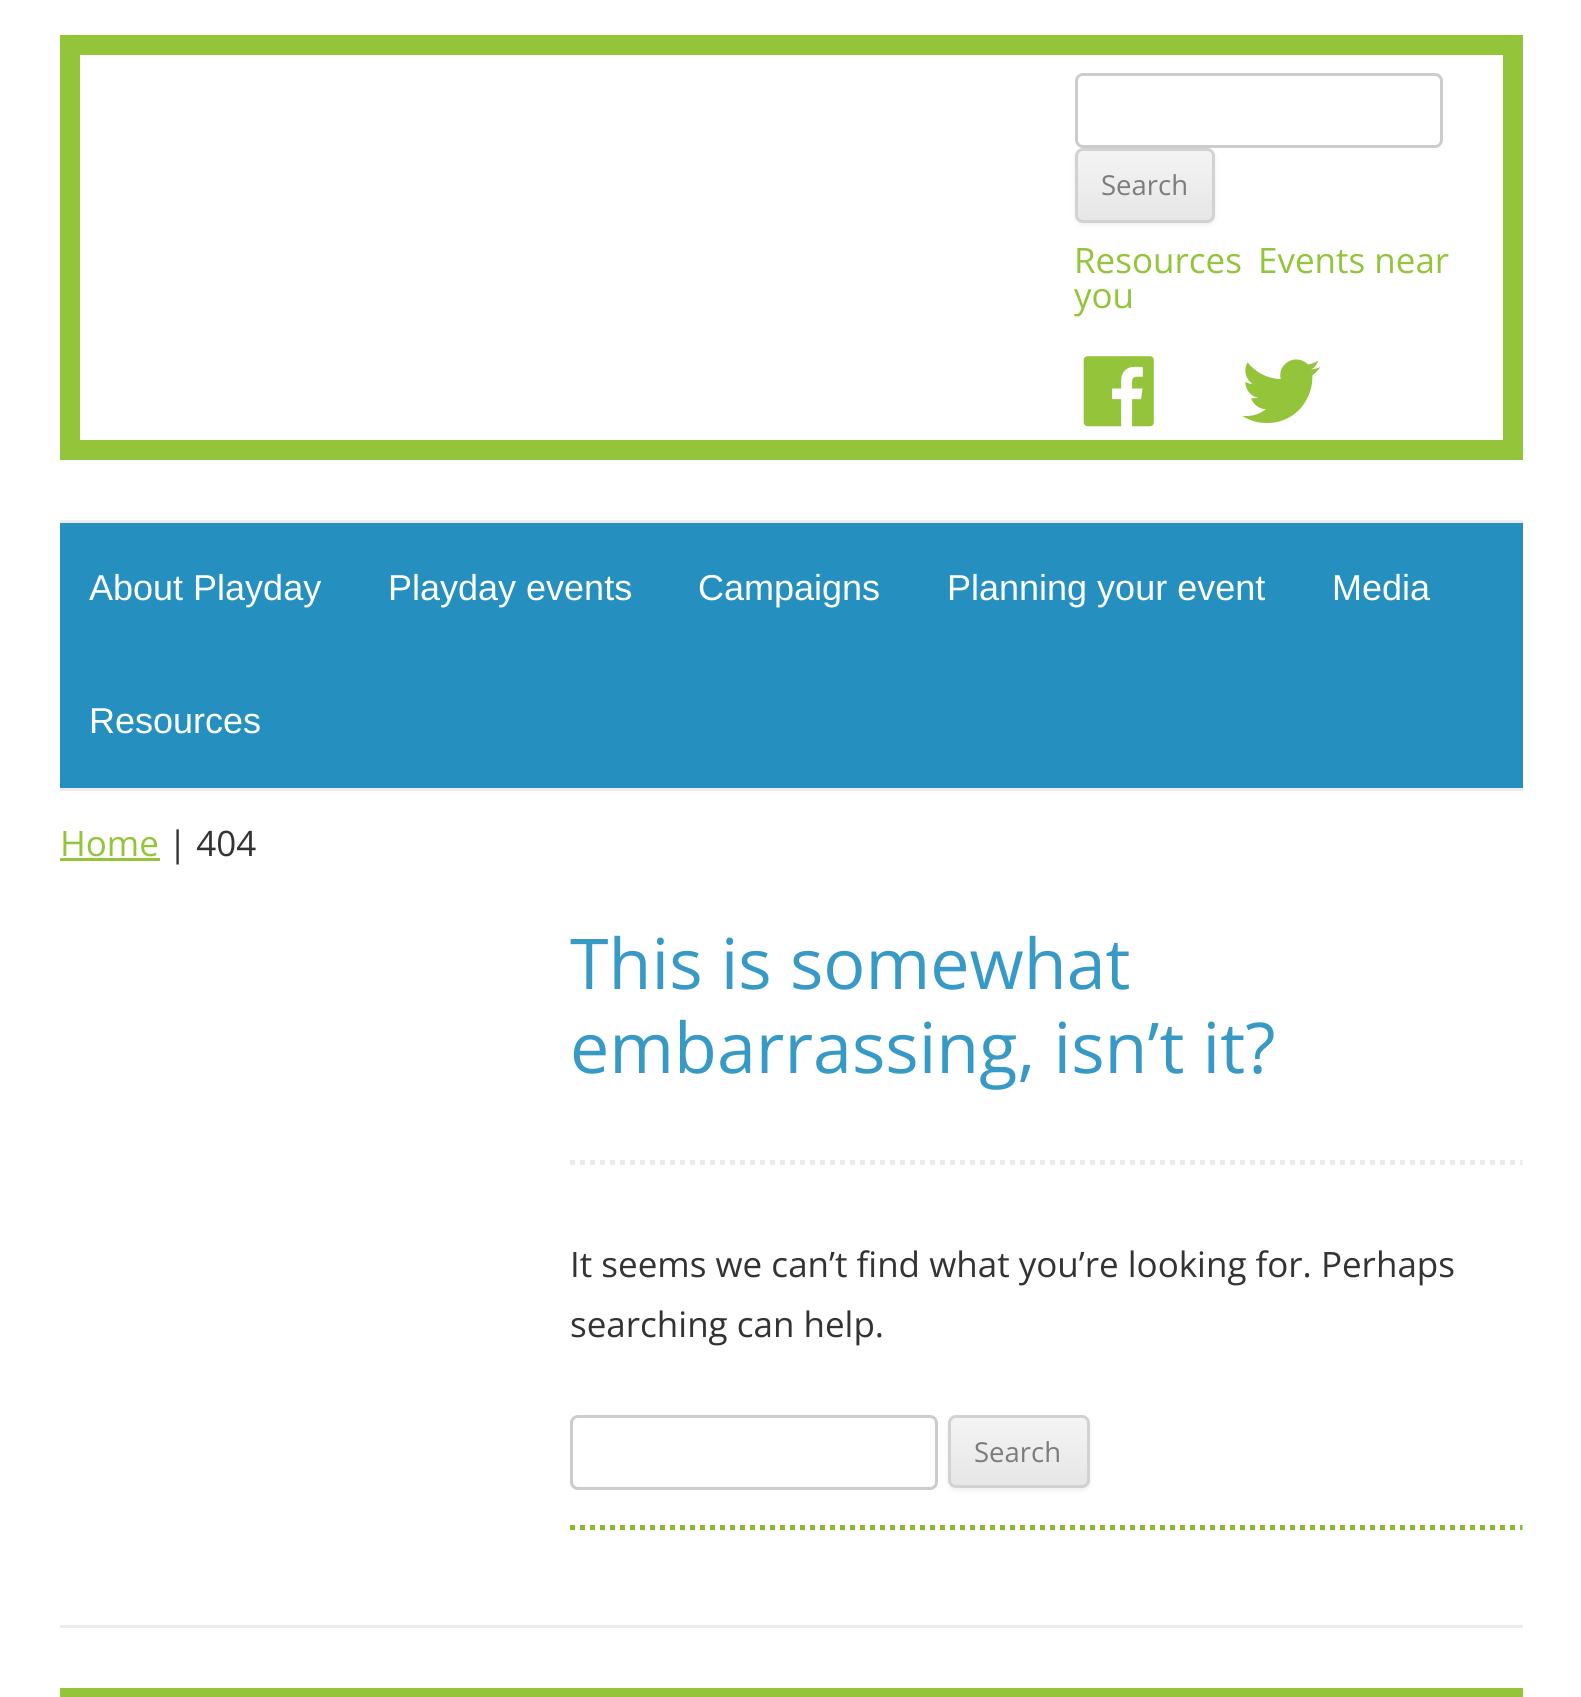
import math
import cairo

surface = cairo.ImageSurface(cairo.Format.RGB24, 1581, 1697)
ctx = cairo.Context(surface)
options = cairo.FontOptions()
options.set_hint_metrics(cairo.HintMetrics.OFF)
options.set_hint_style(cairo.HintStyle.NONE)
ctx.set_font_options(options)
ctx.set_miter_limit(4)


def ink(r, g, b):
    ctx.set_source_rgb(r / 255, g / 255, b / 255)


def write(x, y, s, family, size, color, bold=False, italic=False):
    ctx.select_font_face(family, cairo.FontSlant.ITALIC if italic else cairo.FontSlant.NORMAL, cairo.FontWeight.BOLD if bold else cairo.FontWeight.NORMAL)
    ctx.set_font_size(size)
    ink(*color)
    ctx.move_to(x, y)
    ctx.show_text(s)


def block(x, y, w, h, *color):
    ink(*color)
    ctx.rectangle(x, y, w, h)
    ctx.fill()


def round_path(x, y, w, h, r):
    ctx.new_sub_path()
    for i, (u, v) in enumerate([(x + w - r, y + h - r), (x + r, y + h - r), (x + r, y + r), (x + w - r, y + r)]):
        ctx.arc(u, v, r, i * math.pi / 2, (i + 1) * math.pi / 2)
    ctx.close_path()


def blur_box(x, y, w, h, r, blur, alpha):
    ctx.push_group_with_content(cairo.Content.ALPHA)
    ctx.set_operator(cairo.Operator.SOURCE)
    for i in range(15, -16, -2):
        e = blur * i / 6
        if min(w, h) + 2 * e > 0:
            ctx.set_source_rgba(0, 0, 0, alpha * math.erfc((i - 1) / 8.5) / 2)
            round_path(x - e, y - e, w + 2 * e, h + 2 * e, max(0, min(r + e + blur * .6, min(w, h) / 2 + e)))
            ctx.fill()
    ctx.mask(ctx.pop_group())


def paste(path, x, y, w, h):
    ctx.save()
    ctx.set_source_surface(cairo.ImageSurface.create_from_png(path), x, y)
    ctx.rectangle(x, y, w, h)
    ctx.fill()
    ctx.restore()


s1 = dict(family="Open Sans", size=27.5, color=(124, 124, 124))
s2 = dict(family="Open Sans", size=35, color=(148, 196, 58))
s3 = dict(family="Liberation Sans", size=36, color=(255, 255, 255))
s4 = dict(family="Open Sans", size=35, color=(51, 51, 51))
s5 = dict(family="Open Sans", size=70, color=(55, 153, 198))

ink(255, 255, 255)
ctx.paint()
ctx.rectangle(70, 45, 1443, 405)
ink(148, 196, 58)
ctx.set_line_width(20)
ctx.stroke()
round_path(1076.5, 74.5, 365, 72, 6.5)
ink(204, 204, 204)
ctx.set_line_width(3)
ctx.stroke()
ink(64, 64, 64)
blur_box(1075, 150, 140, 75, 8, 2.5, 0.1)
ctx.save()
round_path(1075, 148, 140, 75, 8)
ctx.clip()
gradient = cairo.LinearGradient(1145, 150, 1145, 220)
gradient.add_color_stop_rgba(0, 0.957, 0.957, 0.957, 1)
gradient.add_color_stop_rgba(1, 0.902, 0.902, 0.902, 1)
ctx.set_source(gradient)
ctx.rectangle(1075, 150, 140, 70)
ctx.fill()
ctx.restore()
round_path(1076.5, 149.5, 137, 72, 6.5)
ink(210, 210, 210)
ctx.stroke()
write(1101, 195, "Search", **s1)
write(1074, 273, "Resources", **s2)
write(1258, 273, "Events near", **s2)
write(1074, 308, "you", **s2)
paste("pic1.png", 1083, 356, 71, 71)
paste("pic2.png", 1242, 359, 79, 65)
block(60, 523, 1463, 265, 37, 143, 191)
block(60, 520, 1463, 3, 237, 237, 237)
block(60, 788, 1463, 3, 237, 237, 237)
write(89, 600, "About Playday", **s3)
write(388, 600, "Playday events", **s3)
write(698, 600, "Campaigns", **s3)
write(947, 600, "Planning your event", **s3)
write(1332, 600, "Media", **s3)
write(89, 733, "Resources", **s3)
write(60, 856, "Home", **s2)
block(60, 858, 100, 3, 148, 196, 58)
write(168, 856, "| 404", **s4)
ctx.new_path()
ctx.move_to(570, 1527.5)
ctx.line_to(1522.5, 1527.5)
ink(136, 186, 43)
ctx.set_line_width(5)
ctx.set_dash([5, 5])
ctx.stroke()
ctx.new_path()
ctx.move_to(570, 1162.5)
ctx.line_to(1522.5, 1162.5)
ink(232, 236, 239)
ctx.stroke()
write(570, 989, "This is somewhat", **s5)
write(570, 1073, "embarrassing, isn’t it?", **s5)
write(570, 1277, "It seems we can’t find what you’re looking for. Perhaps", **s4)
write(570, 1337, "searching can help.", **s4)
round_path(571.5, 1416.5, 365, 72, 6.5)
ink(204, 204, 204)
ctx.set_line_width(3)
ctx.set_dash([])
ctx.stroke()
ink(64, 64, 64)
blur_box(948, 1418, 142, 72, 8, 2.5, 0.1)
ctx.save()
round_path(948, 1415, 142, 73, 8)
ctx.clip()
gradient = cairo.LinearGradient(1019, 1418, 1019, 1485)
gradient.add_color_stop_rgba(0, 0.957, 0.957, 0.957, 1)
gradient.add_color_stop_rgba(1, 0.902, 0.902, 0.902, 1)
ctx.set_source(gradient)
ctx.rectangle(948, 1418, 142, 67)
ctx.fill()
ctx.restore()
round_path(949.5, 1416.5, 139, 70, 6.5)
ink(210, 210, 210)
ctx.stroke()
write(974, 1462, "Search", **s1)
block(60, 1625, 1463, 3, 237, 237, 237)
ctx.rectangle(69, 1697, 1445, 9)
ink(148, 196, 58)
ctx.set_line_width(18)
ctx.stroke()
surface.write_to_png("screenshot.png")
